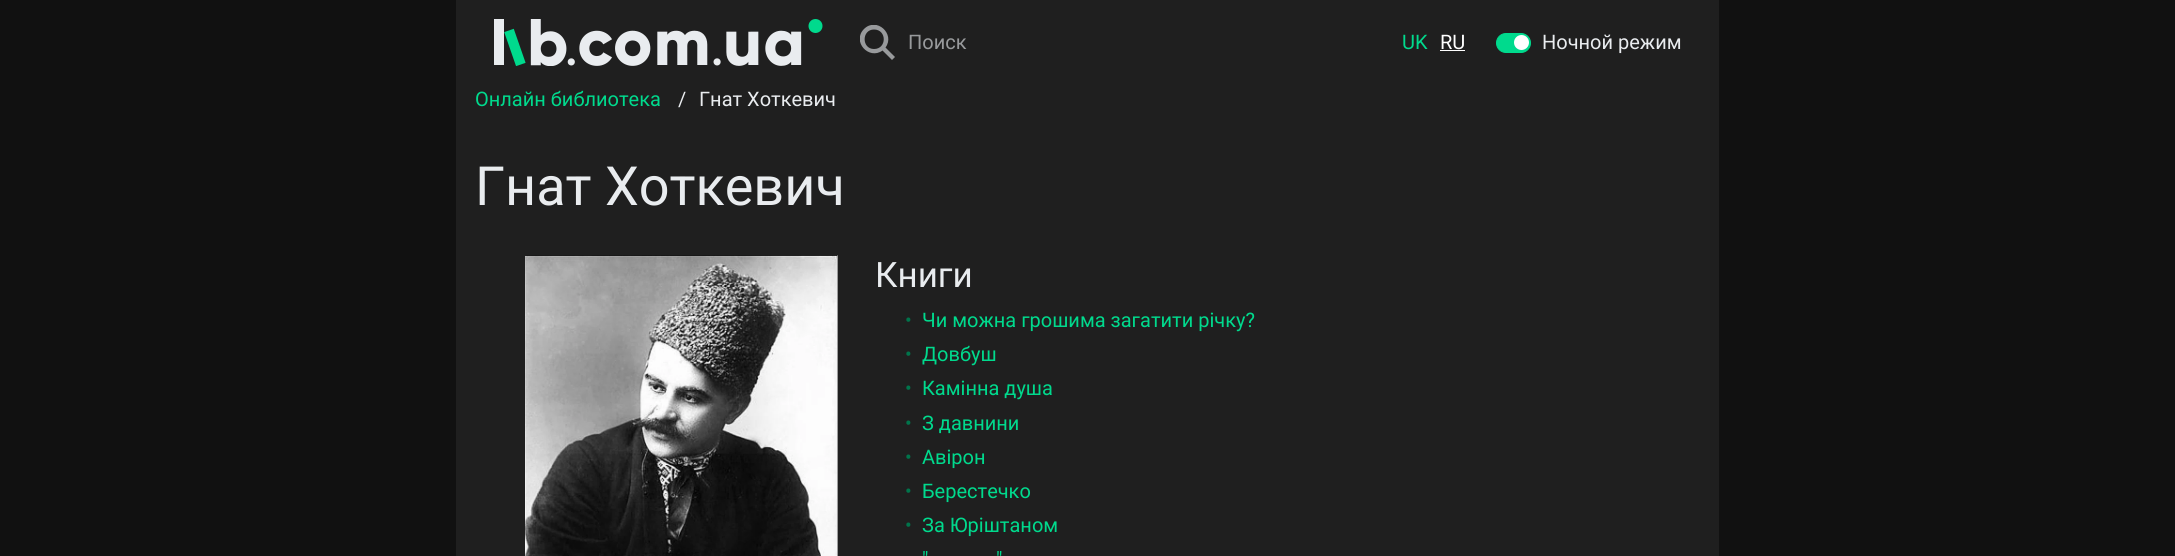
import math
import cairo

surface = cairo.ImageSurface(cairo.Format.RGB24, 2175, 556)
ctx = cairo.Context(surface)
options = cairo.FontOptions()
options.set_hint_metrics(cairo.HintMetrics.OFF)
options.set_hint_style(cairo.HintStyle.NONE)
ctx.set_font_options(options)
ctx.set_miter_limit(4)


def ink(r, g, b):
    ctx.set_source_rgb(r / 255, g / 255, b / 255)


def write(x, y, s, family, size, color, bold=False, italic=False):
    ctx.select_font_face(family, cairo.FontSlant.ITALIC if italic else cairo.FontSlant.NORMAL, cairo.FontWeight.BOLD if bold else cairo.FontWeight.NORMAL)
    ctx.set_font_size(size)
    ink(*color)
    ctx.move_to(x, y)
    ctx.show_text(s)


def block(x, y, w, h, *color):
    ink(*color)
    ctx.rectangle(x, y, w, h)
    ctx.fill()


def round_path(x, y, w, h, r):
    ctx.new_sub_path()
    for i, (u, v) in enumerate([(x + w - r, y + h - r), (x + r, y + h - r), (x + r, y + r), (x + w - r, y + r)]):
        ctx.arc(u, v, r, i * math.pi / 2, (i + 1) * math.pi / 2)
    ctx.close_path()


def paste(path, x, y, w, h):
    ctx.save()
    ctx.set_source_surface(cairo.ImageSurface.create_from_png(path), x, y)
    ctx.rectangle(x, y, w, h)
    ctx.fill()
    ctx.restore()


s1 = dict(family="Roboto", size=20, color=(152, 154, 156))
s2 = dict(family="Roboto", size=20, color=(0, 218, 141))
s3 = dict(family="Roboto", size=20, color=(255, 255, 255))
s4 = dict(family="Roboto", size=20, color=(233, 236, 239))
s5 = dict(family="Roboto", size=54, color=(233, 236, 239))
s6 = dict(family="Roboto", size=35, color=(233, 236, 239))
s7 = dict(family="Roboto", size=20, color=(0, 116, 75))

ink(17, 17, 17)
ctx.paint()
block(456, 0, 1263, 556, 31, 31, 31)
paste("pic1.png", 494, 19, 329, 47)
ctx.save()
ctx.rectangle(860, 25, 35, 35)
ctx.clip()
ink(152, 154, 156)
ctx.new_path()
ctx.move_to(885.5, 47.5)
ctx.curve_to(895.5, 34, 876.5, 16.5, 864, 29)
ctx.curve_to(851.5, 41.5, 869, 60.5, 882.5, 50.5)
ctx.line_to(892, 60)
ctx.line_to(895, 57)
ctx.close_path()
ctx.move_to(874, 49)
ctx.curve_to(861.5, 49, 861.5, 29.5, 874, 29.5)
ctx.curve_to(887, 29.5, 887, 49, 874, 49)
ctx.close_path()
ctx.fill()
ctx.restore()
write(908, 49, "Поиск", **s1)
write(1402, 49, "UK", **s2)
write(1440, 49, "RU", **s3)
block(1440, 50, 25, 1, 255, 255, 255)
ink(0, 218, 141)
round_path(1496.5, 33.5, 34, 19, 9.5)
ctx.fill_preserve()
ctx.set_line_width(1)
ctx.stroke()
write(1542, 49, "Ночной режим", **s4)
ink(255, 255, 255)
ctx.new_path()
ctx.arc(1521.5, 42.5, 7.5, 0, 2 * math.pi)
ctx.fill()
write(475, 106, "Онлайн библиотека", **s2)
write(678, 106, "/", **s4)
write(699, 106, "Гнат Хоткевич", **s4)
write(475, 205, "Гнат Хоткевич", **s5)
block(837, 255, 1, 301, 125, 125, 125)
paste("pic2.png", 525, 255, 313, 301)
write(875, 287, "Книги", **s6)
write(905, 327, "•", **s7)
write(922, 327, "Чи можна грошима загатити річку?", **s2)
write(905, 361, "•", **s7)
write(922, 361, "Довбуш", **s2)
write(905, 395, "•", **s7)
write(922, 395, "Камінна душа", **s2)
write(905, 430, "•", **s7)
write(922, 430, "З давнини", **s2)
write(905, 464, "•", **s7)
write(922, 464, "Авірон", **s2)
write(905, 498, "•", **s7)
write(922, 498, "Берестечко", **s2)
write(905, 532, "•", **s7)
write(922, 532, "За Юріштаном", **s2)
write(922, 566, "\"", **s2)
write(996, 566, "\"", **s2)
surface.write_to_png("screenshot.png")
